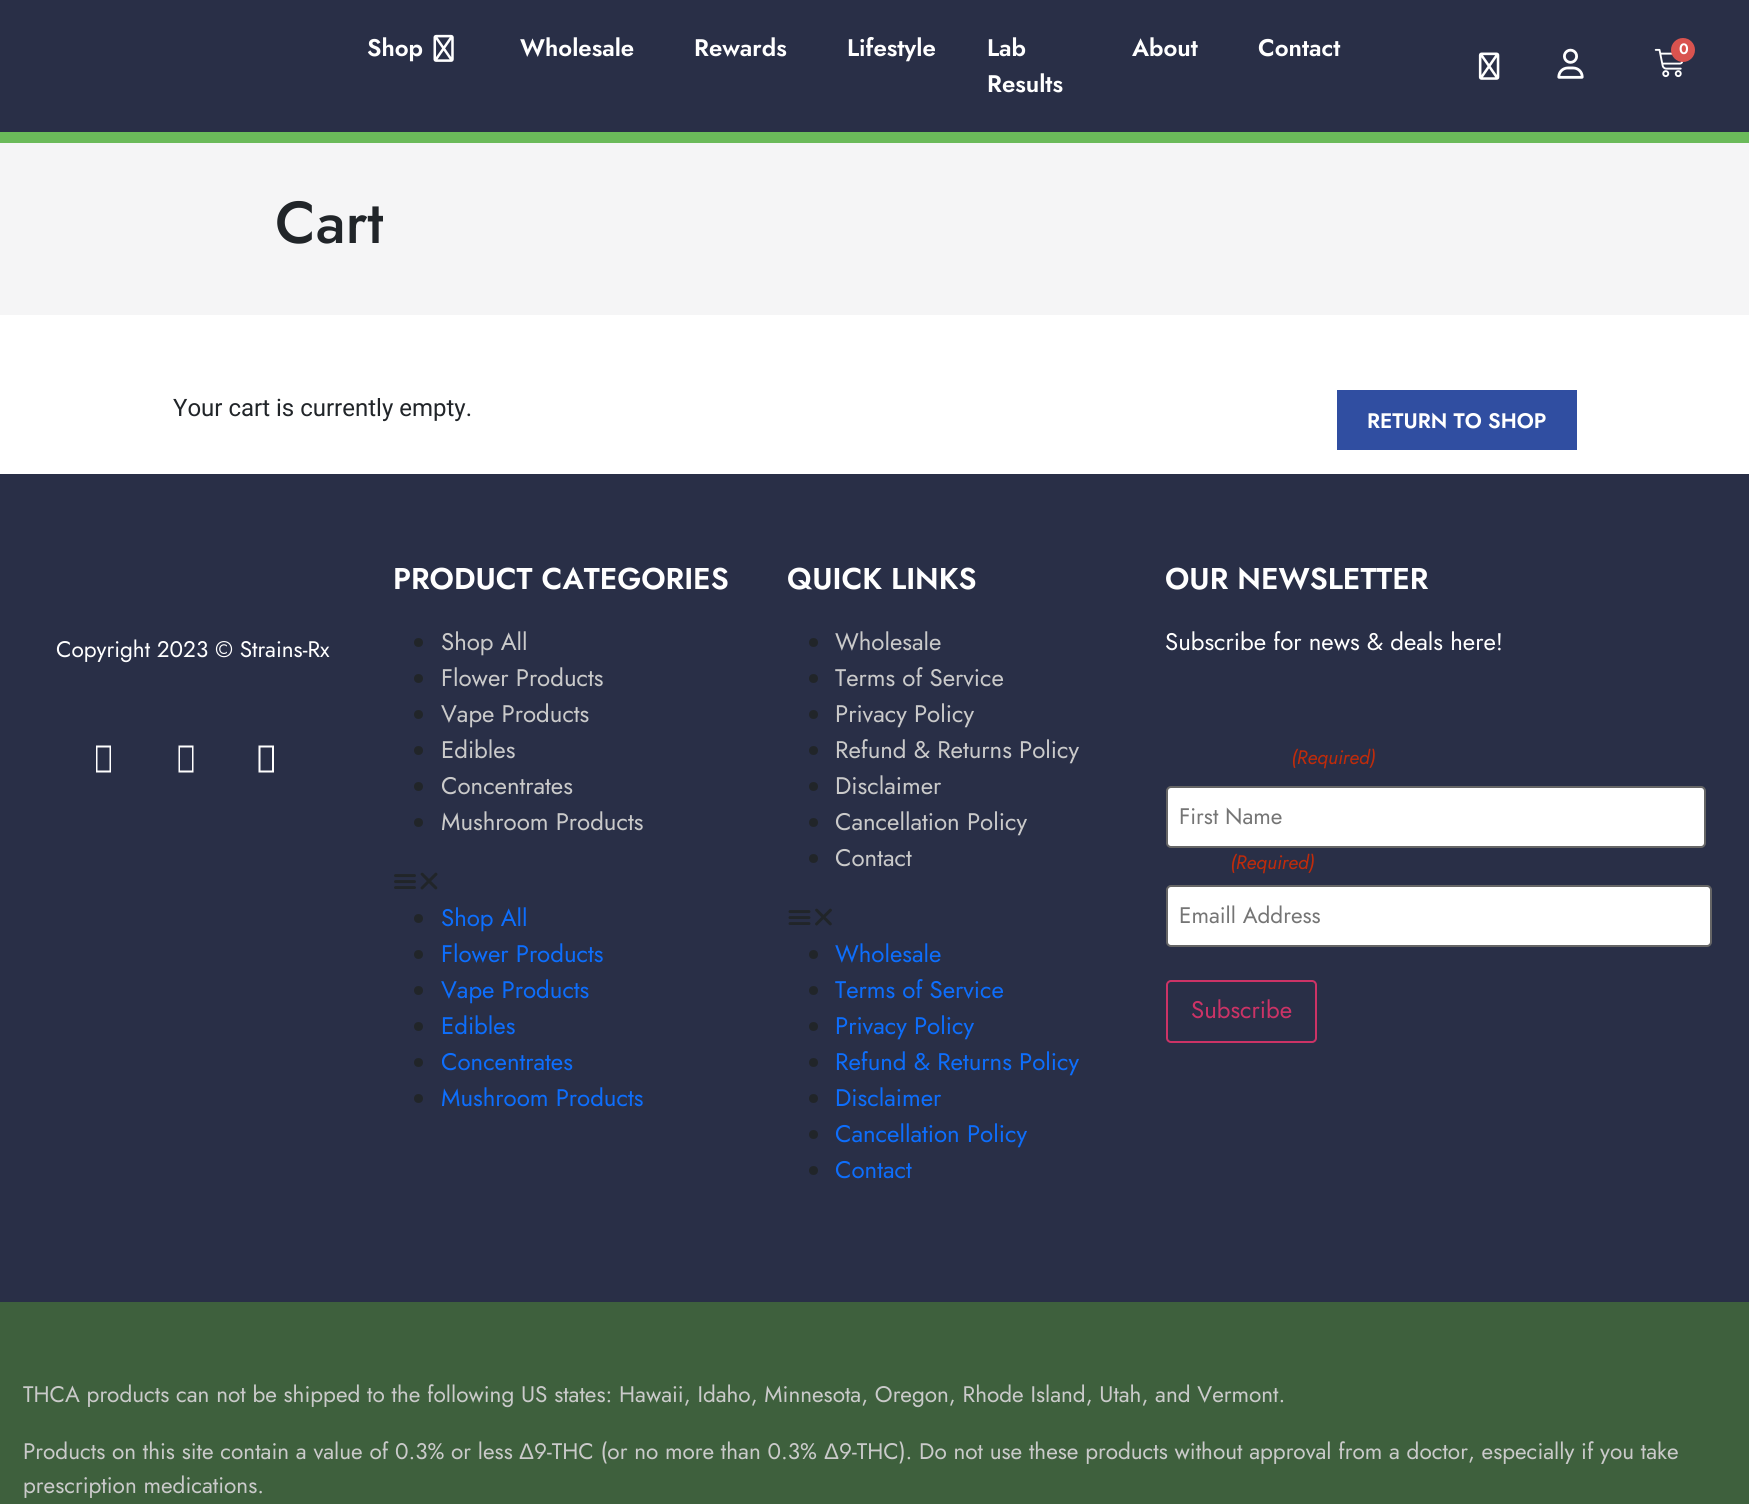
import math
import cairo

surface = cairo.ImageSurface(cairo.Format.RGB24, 1749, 1504)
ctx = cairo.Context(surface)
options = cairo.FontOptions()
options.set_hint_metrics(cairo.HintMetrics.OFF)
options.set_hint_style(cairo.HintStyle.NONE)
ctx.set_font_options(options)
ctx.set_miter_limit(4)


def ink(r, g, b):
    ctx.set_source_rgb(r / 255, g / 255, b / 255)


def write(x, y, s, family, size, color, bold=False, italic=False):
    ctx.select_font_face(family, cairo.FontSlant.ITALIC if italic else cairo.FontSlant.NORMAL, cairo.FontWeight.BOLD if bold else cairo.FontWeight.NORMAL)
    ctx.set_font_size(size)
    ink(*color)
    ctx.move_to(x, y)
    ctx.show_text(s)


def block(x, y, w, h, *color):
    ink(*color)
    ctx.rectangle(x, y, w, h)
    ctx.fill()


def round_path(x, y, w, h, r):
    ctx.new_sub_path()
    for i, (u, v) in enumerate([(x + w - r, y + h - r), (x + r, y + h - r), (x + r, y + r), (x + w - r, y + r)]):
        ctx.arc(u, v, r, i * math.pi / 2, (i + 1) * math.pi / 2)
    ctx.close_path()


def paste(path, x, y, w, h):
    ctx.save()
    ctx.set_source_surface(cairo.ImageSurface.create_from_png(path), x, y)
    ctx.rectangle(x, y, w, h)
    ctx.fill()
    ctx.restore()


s1 = dict(family="Jost SemiBold", size=24, color=(255, 255, 255))
s2 = dict(family="Jost SemiBold", size=15, color=(255, 255, 255))
s3 = dict(family="Jost Medium", size=59, color=(33, 37, 41))
s4 = dict(family="Roboto", size=24, color=(33, 37, 41))
s5 = dict(family="Jost SemiBold", size=21, color=(255, 255, 255))
s6 = dict(family="Jost", size=22.5, color=(255, 255, 255))
s7 = dict(family="Jost SemiBold", size=30, color=(255, 255, 255))
s8 = dict(family="Jost", size=24, color=(202, 202, 202))
s9 = dict(family="Jost", size=24, color=(13, 110, 253))
s10 = dict(family="Jost", size=24, color=(255, 255, 255))
s11 = dict(family="Jost", size=19.5, color=(192, 43, 10), italic=True)
s12 = dict(family="Jost", size=22.5, color=(117, 117, 117))
s13 = dict(family="Jost", size=24, color=(204, 51, 102))
s14 = dict(family="Jost", size=22.5, color=(202, 202, 202))
s15 = dict(family="Liberation Sans", size=22.5, color=(202, 202, 202))

ink(255, 255, 255)
ctx.paint()
block(0, 0, 1749, 132, 41, 47, 71)
write(367, 56, "Shop", **s1)
paste("pic1.png", 433, 34, 21, 28)
write(520, 56, "Wholesale", **s1)
write(694, 56, "Rewards", **s1)
write(847, 56, "Lifestyle", **s1)
write(987, 56, "Lab", **s1)
write(987, 92, "Results", **s1)
write(1132, 56, "About", **s1)
write(1258, 56, "Contact", **s1)
paste("pic2.png", 1478, 52, 22, 28)
paste("pic3.png", 1557, 48, 27, 31)
paste("pic4.png", 1654, 48, 30, 30)
ink(217, 83, 79)
ctx.arc(1683, 50, 12, 0, 2 * math.pi)
ctx.fill()
write(1679, 54, "0", **s2)
block(0, 132, 1749, 11, 107, 186, 90)
block(0, 143, 1749, 172, 245, 245, 246)
write(275, 243, "Cart", **s3)
write(173, 416, "Your cart is currently empty.", **s4)
block(1337, 390, 240, 60, 48, 78, 161)
write(1367, 428, "RETURN TO SHOP", **s5)
block(0, 474, 1749, 828, 41, 47, 71)
write(56, 657, "Copyright 2023 © Strains-Rx", **s6)
ctx.new_path()
ctx.move_to(96, 772.5)
ctx.line_to(96, 745.5)
ctx.line_to(111, 745.5)
ctx.line_to(111, 772.5)
ctx.close_path()
ctx.move_to(97.5, 770.5)
ctx.line_to(109.5, 770.5)
ctx.line_to(109.5, 747.5)
ctx.line_to(97.5, 747.5)
ctx.close_path()
ctx.fill()
ctx.new_path()
ctx.move_to(178.5, 772.5)
ctx.line_to(178.5, 745.5)
ctx.line_to(193.5, 745.5)
ctx.line_to(193.5, 772.5)
ctx.close_path()
ctx.move_to(180, 770.5)
ctx.line_to(192, 770.5)
ctx.line_to(192, 747.5)
ctx.line_to(180, 747.5)
ctx.close_path()
ctx.fill()
ctx.new_path()
ctx.move_to(258.5, 772.5)
ctx.line_to(258.5, 745.5)
ctx.line_to(274, 745.5)
ctx.line_to(274, 772.5)
ctx.close_path()
ctx.move_to(260.5, 770.5)
ctx.line_to(272, 770.5)
ctx.line_to(272, 747.5)
ctx.line_to(260.5, 747.5)
ctx.close_path()
ctx.fill()
write(393, 589, "PRODUCT CATEGORIES", **s7)
ink(33, 37, 41)
ctx.new_path()
ctx.arc(418.5, 642.5, 4.5, 0, 2 * math.pi)
ctx.fill()
write(441, 650, "Shop All", **s8)
ink(33, 37, 41)
ctx.new_path()
ctx.arc(418.5, 678.5, 4.5, 0, 2 * math.pi)
ctx.fill()
write(441, 686, "Flower Products", **s8)
ink(33, 37, 41)
ctx.new_path()
ctx.arc(418.5, 714.5, 4.5, 0, 2 * math.pi)
ctx.fill()
write(441, 722, "Vape Products", **s8)
ink(33, 37, 41)
ctx.new_path()
ctx.arc(418.5, 750.5, 4.5, 0, 2 * math.pi)
ctx.fill()
write(441, 758, "Edibles", **s8)
ink(33, 37, 41)
ctx.new_path()
ctx.arc(418.5, 786.5, 4.5, 0, 2 * math.pi)
ctx.fill()
write(441, 794, "Concentrates", **s8)
ink(33, 37, 41)
ctx.new_path()
ctx.arc(418.5, 822.5, 4.5, 0, 2 * math.pi)
ctx.fill()
write(441, 830, "Mushroom Products", **s8)
paste("pic5.png", 394, 874, 22, 15)
paste("pic6.png", 420, 872, 18, 18)
ink(33, 37, 41)
ctx.arc(418.5, 918.5, 4.5, 0, 2 * math.pi)
ctx.fill()
write(441, 926, "Shop All", **s9)
ink(33, 37, 41)
ctx.new_path()
ctx.arc(418.5, 954.5, 4.5, 0, 2 * math.pi)
ctx.fill()
write(441, 962, "Flower Products", **s9)
ink(33, 37, 41)
ctx.new_path()
ctx.arc(418.5, 990.5, 4.5, 0, 2 * math.pi)
ctx.fill()
write(441, 998, "Vape Products", **s9)
ink(33, 37, 41)
ctx.new_path()
ctx.arc(418.5, 1026.5, 4.5, 0, 2 * math.pi)
ctx.fill()
write(441, 1034, "Edibles", **s9)
ink(33, 37, 41)
ctx.new_path()
ctx.arc(418.5, 1062.5, 4.5, 0, 2 * math.pi)
ctx.fill()
write(441, 1070, "Concentrates", **s9)
ink(33, 37, 41)
ctx.new_path()
ctx.arc(418.5, 1098.5, 4.5, 0, 2 * math.pi)
ctx.fill()
write(441, 1106, "Mushroom Products", **s9)
write(787, 589, "QUICK LINKS", **s7)
ink(33, 37, 41)
ctx.new_path()
ctx.arc(813.5, 642.5, 4.5, 0, 2 * math.pi)
ctx.fill()
write(835, 650, "Wholesale", **s8)
ink(33, 37, 41)
ctx.new_path()
ctx.arc(813.5, 678.5, 4.5, 0, 2 * math.pi)
ctx.fill()
write(835, 686, "Terms of Service", **s8)
ink(33, 37, 41)
ctx.new_path()
ctx.arc(813.5, 714.5, 4.5, 0, 2 * math.pi)
ctx.fill()
write(835, 722, "Privacy Policy", **s8)
ink(33, 37, 41)
ctx.new_path()
ctx.arc(813.5, 750.5, 4.5, 0, 2 * math.pi)
ctx.fill()
write(835, 758, "Refund & Returns Policy", **s8)
ink(33, 37, 41)
ctx.new_path()
ctx.arc(813.5, 786.5, 4.5, 0, 2 * math.pi)
ctx.fill()
write(835, 794, "Disclaimer", **s8)
ink(33, 37, 41)
ctx.new_path()
ctx.arc(813.5, 822.5, 4.5, 0, 2 * math.pi)
ctx.fill()
write(835, 830, "Cancellation Policy", **s8)
ink(33, 37, 41)
ctx.new_path()
ctx.arc(813.5, 858.5, 4.5, 0, 2 * math.pi)
ctx.fill()
write(835, 866, "Contact", **s8)
paste("pic7.png", 788, 910, 23, 15)
paste("pic8.png", 815, 908, 17, 18)
ink(33, 37, 41)
ctx.arc(813.5, 954.5, 4.5, 0, 2 * math.pi)
ctx.fill()
write(835, 962, "Wholesale", **s9)
ink(33, 37, 41)
ctx.new_path()
ctx.arc(813.5, 990.5, 4.5, 0, 2 * math.pi)
ctx.fill()
write(835, 998, "Terms of Service", **s9)
ink(33, 37, 41)
ctx.new_path()
ctx.arc(813.5, 1026.5, 4.5, 0, 2 * math.pi)
ctx.fill()
write(835, 1034, "Privacy Policy", **s9)
ink(33, 37, 41)
ctx.new_path()
ctx.arc(813.5, 1062.5, 4.5, 0, 2 * math.pi)
ctx.fill()
write(835, 1070, "Refund & Returns Policy", **s9)
ink(33, 37, 41)
ctx.new_path()
ctx.arc(813.5, 1098.5, 4.5, 0, 2 * math.pi)
ctx.fill()
write(835, 1106, "Disclaimer", **s9)
ink(33, 37, 41)
ctx.new_path()
ctx.arc(813.5, 1134.5, 4.5, 0, 2 * math.pi)
ctx.fill()
write(835, 1142, "Cancellation Policy", **s9)
ink(33, 37, 41)
ctx.new_path()
ctx.arc(813.5, 1170.5, 4.5, 0, 2 * math.pi)
ctx.fill()
write(835, 1178, "Contact", **s9)
write(1165, 589, "OUR NEWSLETTER", **s7)
write(1165, 650, "Subscribe for news & deals here!", **s10)
write(1291, 764, "(Required)", **s11)
ink(255, 255, 255)
round_path(1167, 787, 538, 60, 4)
ctx.fill_preserve()
ink(102, 102, 102)
ctx.stroke()
write(1179, 824, "First Name", **s12)
write(1230, 869, "(Required)", **s11)
ink(255, 255, 255)
round_path(1167, 886, 544, 60, 4)
ctx.fill_preserve()
ink(102, 102, 102)
ctx.stroke()
write(1179, 923, "Emaill Address", **s12)
round_path(1167, 981, 149, 61, 4)
ink(204, 51, 102)
ctx.stroke()
write(1191, 1018, "Subscribe", **s13)
block(0, 1302, 1749, 202, 62, 96, 61)
write(23, 1402, "THCA products can not be shipped to the following US states: Hawaii, Idaho, Minnesota, Oregon, Rhode Island, Utah, and Vermont.", **s14)
write(23, 1459, "Products on this site contain a value of 0.3% or less", **s14)
write(519, 1459, "Δ", **s15)
write(534, 1459, "9-THC (or no more than 0.3%", **s14)
write(824, 1459, "Δ", **s15)
write(839, 1459, "9-THC). Do not use these products without approval from a doctor, especially if you take", **s14)
write(23, 1493, "prescription medications.", **s14)
surface.write_to_png("screenshot.png")
